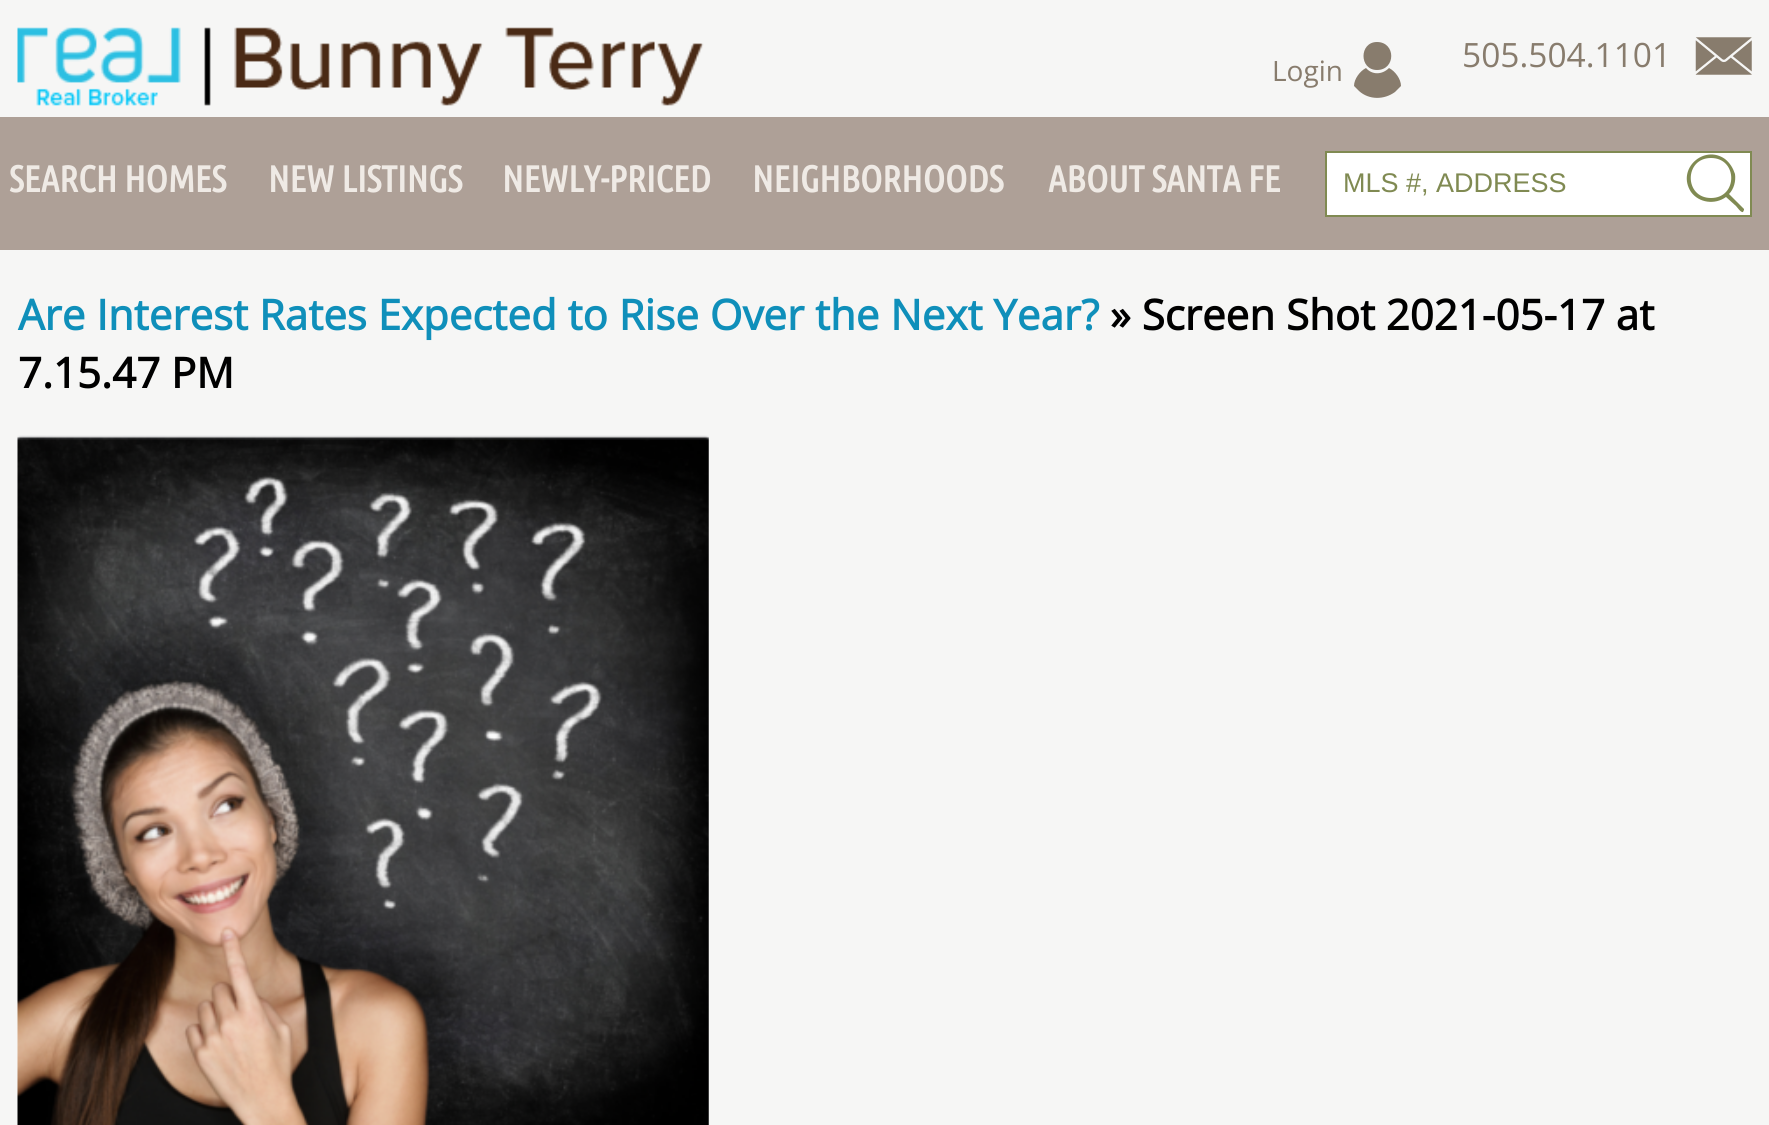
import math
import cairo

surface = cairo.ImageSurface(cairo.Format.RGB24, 1769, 1125)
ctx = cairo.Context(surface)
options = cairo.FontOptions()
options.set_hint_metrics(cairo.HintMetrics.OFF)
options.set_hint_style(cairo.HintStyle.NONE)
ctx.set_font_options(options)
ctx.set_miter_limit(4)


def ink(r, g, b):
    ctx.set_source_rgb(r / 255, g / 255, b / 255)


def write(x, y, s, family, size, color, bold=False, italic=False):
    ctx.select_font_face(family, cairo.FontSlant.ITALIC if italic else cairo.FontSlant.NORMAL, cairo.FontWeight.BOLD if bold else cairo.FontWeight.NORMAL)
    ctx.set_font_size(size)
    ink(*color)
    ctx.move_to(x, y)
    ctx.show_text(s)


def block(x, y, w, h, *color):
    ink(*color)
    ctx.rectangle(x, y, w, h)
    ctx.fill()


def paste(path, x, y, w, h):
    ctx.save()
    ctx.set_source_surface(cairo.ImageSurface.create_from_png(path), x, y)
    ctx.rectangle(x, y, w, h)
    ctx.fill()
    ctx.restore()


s1 = dict(family="Open Sans", size=33.5, color=(136, 124, 109))
s2 = dict(family="Open Sans", size=28, color=(136, 124, 109))
s3 = dict(family="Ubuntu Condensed", size=37, color=(239, 234, 229), bold=True)
s4 = dict(family="Liberation Sans", size=27, color=(128, 138, 82))
s5 = dict(family="Open Sans", size=42, color=(15, 143, 186), bold=True)
s6 = dict(family="Open Sans", size=42, color=(0, 0, 0), bold=True)

ink(246, 246, 245)
ctx.paint()
paste("pic1.png", 17, 27, 687, 79)
write(1462, 67, "505.504.1101", **s1)
paste("pic2.png", 1695, 37, 57, 38)
write(1272, 81, "Login", **s2)
ctx.new_path()
ctx.move_to(1401, 86)
ctx.line_to(1395, 92)
ctx.curve_to(1384, 100, 1369, 100, 1359, 91)
ctx.line_to(1354, 86)
ctx.curve_to(1354, 79, 1360, 71, 1366, 68)
ctx.curve_to(1372, 75, 1382, 75, 1389, 68)
ctx.curve_to(1395, 71, 1401, 79, 1401, 86)
ctx.close_path()
ctx.move_to(1377, 70)
ctx.curve_to(1396, 70, 1396, 42, 1377, 42)
ctx.curve_to(1359, 42, 1359, 70, 1377, 70)
ctx.close_path()
ctx.fill()
block(0, 117, 1769, 133, 174, 160, 151)
write(9, 192, "SEARCH HOMES", **s3)
write(268, 192, "NEW LISTINGS", **s3)
write(502, 192, "NEWLY-PRICED", **s3)
write(752, 192, "NEIGHBORHOODS", **s3)
write(1048, 192, "ABOUT SANTA FE", **s3)
ink(255, 255, 255)
ctx.rectangle(1326, 152, 425, 64)
ctx.fill_preserve()
ink(128, 138, 82)
ctx.stroke()
write(1343, 192, "MLS #, ADDRESS", **s4)
ctx.new_path()
ctx.move_to(1744, 209)
ctx.line_to(1729, 194)
ctx.curve_to(1734, 189, 1736, 181, 1735, 174)
ctx.curve_to(1733, 168, 1730, 163, 1725, 159)
ctx.curve_to(1704, 144, 1676, 169, 1691, 192)
ctx.curve_to(1699, 203, 1715, 205, 1726, 197)
ctx.line_to(1736, 206)
ctx.curve_to(1737, 207, 1741, 213, 1743, 212)
ctx.line_to(1744, 210)
ctx.close_path()
ctx.move_to(1711, 198)
ctx.curve_to(1684, 198, 1684, 158, 1711, 158)
ctx.curve_to(1738, 158, 1738, 198, 1711, 198)
ctx.close_path()
ctx.fill()
write(18, 330, "Are Interest Rates Expected to Rise Over the Next Year?", **s5)
write(1110, 330, "» Screen Shot 2021-05-17 at", **s6)
write(18, 388, "7.15.47 PM", **s6)
paste("pic3.png", 17, 435, 692, 690)
surface.write_to_png("screenshot.png")
